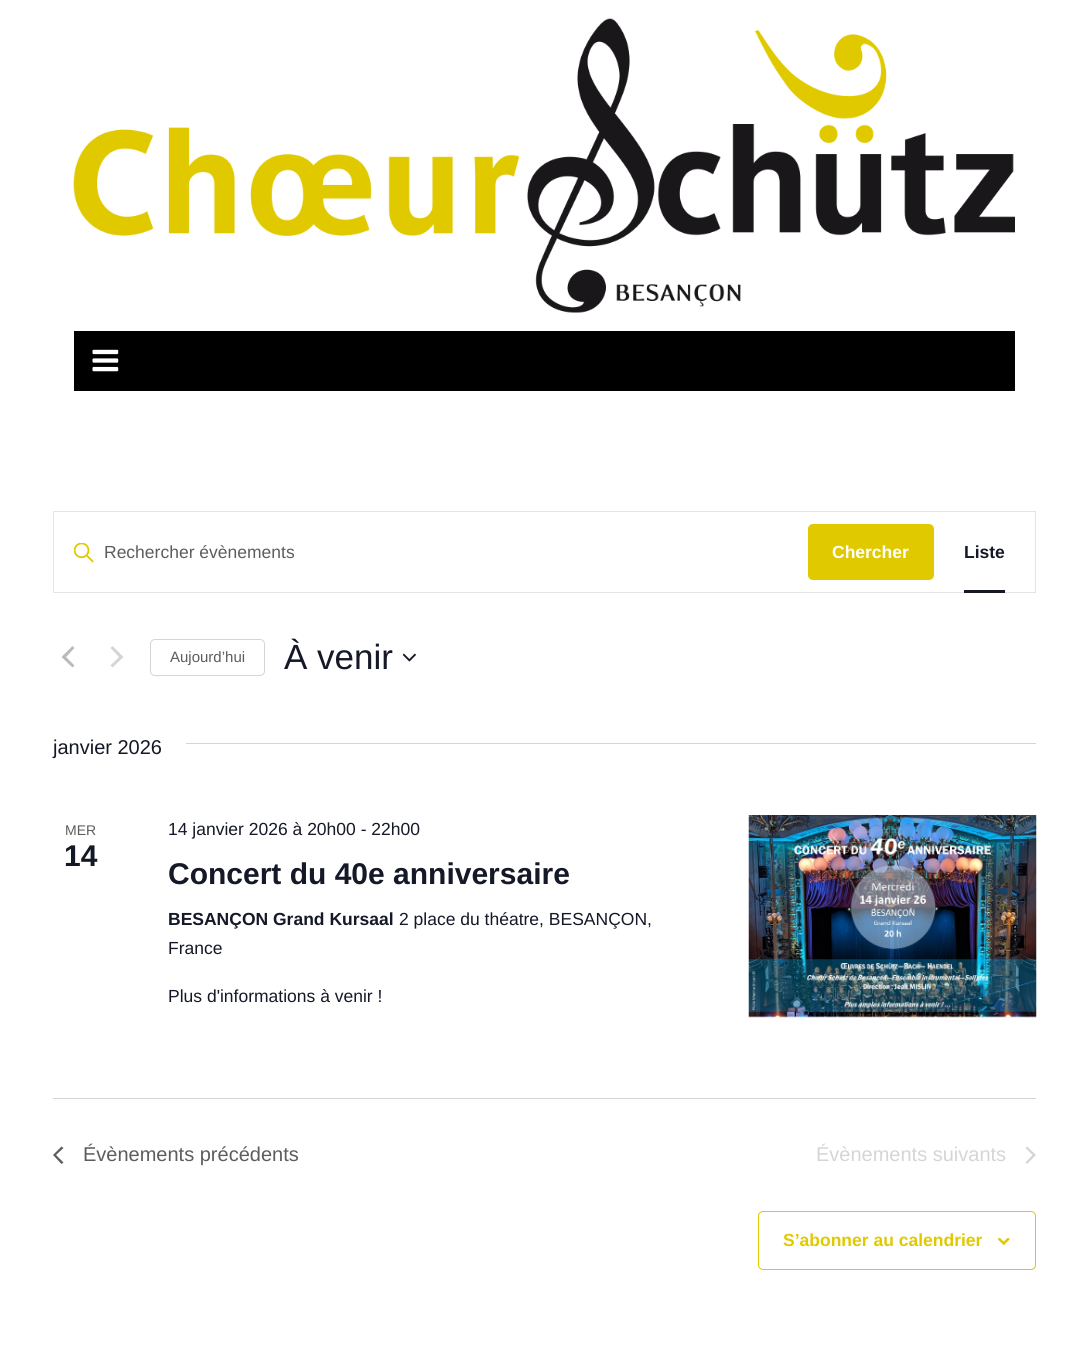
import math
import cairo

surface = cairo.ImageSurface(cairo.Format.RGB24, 1088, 1350)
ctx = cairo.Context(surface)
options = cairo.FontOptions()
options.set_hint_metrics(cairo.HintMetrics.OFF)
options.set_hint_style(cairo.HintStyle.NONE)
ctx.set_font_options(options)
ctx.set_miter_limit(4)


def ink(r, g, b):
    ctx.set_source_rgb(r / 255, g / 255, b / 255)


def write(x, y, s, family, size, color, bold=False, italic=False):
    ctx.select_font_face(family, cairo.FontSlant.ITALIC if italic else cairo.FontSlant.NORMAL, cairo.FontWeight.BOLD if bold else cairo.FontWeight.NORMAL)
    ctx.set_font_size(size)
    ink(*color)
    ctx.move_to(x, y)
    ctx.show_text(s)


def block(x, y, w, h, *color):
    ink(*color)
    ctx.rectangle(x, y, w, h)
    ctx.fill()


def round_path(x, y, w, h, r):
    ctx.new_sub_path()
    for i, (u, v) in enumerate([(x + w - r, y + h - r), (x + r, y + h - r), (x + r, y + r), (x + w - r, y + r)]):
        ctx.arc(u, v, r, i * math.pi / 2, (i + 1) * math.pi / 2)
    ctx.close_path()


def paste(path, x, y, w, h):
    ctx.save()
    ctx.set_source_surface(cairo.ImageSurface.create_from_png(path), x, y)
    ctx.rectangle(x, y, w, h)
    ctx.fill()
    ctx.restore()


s1 = dict(family="Liberation Sans", size=17.5, color=(93, 93, 93))
s2 = dict(family="Liberation Sans", size=17.5, color=(255, 255, 255), bold=True)
s3 = dict(family="Liberation Sans", size=17.5, color=(20, 24, 39), bold=True)
s4 = dict(family="Liberation Sans", size=15, color=(93, 93, 93))
s5 = dict(family="Liberation Sans", size=35, color=(20, 24, 39))
s6 = dict(family="Liberation Sans", size=20, color=(20, 24, 39))
s7 = dict(family="Liberation Sans", size=14, color=(93, 93, 93))
s8 = dict(family="Liberation Sans", size=30, color=(20, 24, 39), bold=True)
s9 = dict(family="Liberation Sans", size=17.5, color=(20, 24, 39))
s10 = dict(family="Liberation Sans", size=20, color=(93, 93, 93))
s11 = dict(family="Liberation Sans", size=20, color=(213, 213, 213))
s12 = dict(family="Liberation Sans", size=17.5, color=(225, 201, 0), bold=True)

ink(255, 255, 255)
ctx.paint()
paste("pic1.png", 73, 18, 942, 295)
block(74, 331, 941, 60, 0, 0, 0)
paste("pic2.png", 92, 349, 27, 23)
ctx.rectangle(53.5, 511.5, 982, 81)
ink(228, 228, 228)
ctx.set_line_width(1)
ctx.stroke()
paste("pic3.png", 74, 543, 20, 20)
write(104, 558, "Rechercher évènements", **s1)
ink(225, 201, 0)
round_path(808, 524, 126, 56, 5)
ctx.fill()
write(832, 558, "Chercher", **s2)
write(964, 558, "Liste", **s3)
block(964, 590, 41, 3, 20, 24, 39)
ink(186, 186, 186)
ctx.new_path()
ctx.move_to(74.5, 665.5)
ctx.line_to(72.5, 667.5)
ctx.line_to(61.5, 657)
ctx.line_to(72.5, 646)
ctx.line_to(74.5, 648)
ctx.line_to(66, 657)
ctx.close_path()
ctx.fill()
ink(213, 213, 213)
ctx.new_path()
ctx.move_to(110.5, 648)
ctx.line_to(112.5, 646)
ctx.line_to(123.5, 657)
ctx.line_to(112.5, 667.5)
ctx.line_to(110.5, 665.5)
ctx.line_to(119, 657)
ctx.close_path()
ctx.fill()
round_path(150.5, 639.5, 114, 36, 4.5)
ctx.stroke()
write(170, 662, "Aujourd’hui", **s4)
write(284, 669, "À venir", **s5)
paste("pic4.png", 403, 653, 13, 9)
write(53, 754, "janvier 2026", **s6)
block(186, 743, 850, 1, 213, 213, 213)
write(65, 835, "MER", **s7)
write(64, 866, "14", **s8)
write(168, 835, "14 janvier 2026 à 20h00 - 22h00", **s9)
write(168, 884, "Concert du 40e anniversaire", **s8)
write(168, 925, "BESANÇON Grand Kursaal", **s3)
write(399, 925, "2 place du théatre, BESANÇON,", **s9)
write(168, 954, "France", **s9)
write(168, 1002, "Plus d'informations à venir !", **s9)
paste("pic5.png", 748, 815, 289, 203)
block(53, 1098, 983, 1, 213, 213, 213)
ink(93, 93, 93)
ctx.new_path()
ctx.move_to(63.5, 1162.5)
ctx.line_to(61.5, 1164)
ctx.line_to(53, 1155)
ctx.line_to(61.5, 1146.5)
ctx.line_to(63.5, 1148)
ctx.line_to(56, 1155)
ctx.close_path()
ctx.fill()
write(83, 1161, "Évènements précédents", **s10)
write(816, 1161, "Évènements suivants", **s11)
ctx.new_path()
ctx.move_to(1025.5, 1148)
ctx.line_to(1027, 1146.5)
ctx.line_to(1036, 1155)
ctx.line_to(1027, 1164)
ctx.line_to(1025.5, 1162.5)
ctx.line_to(1032.5, 1155)
ctx.close_path()
ctx.fill()
round_path(758.5, 1211.5, 277, 58, 4.5)
ink(225, 201, 0)
ctx.stroke()
write(783, 1246, "S’abonner au calendrier", **s12)
paste("pic6.png", 998, 1238, 12, 7)
surface.write_to_png("screenshot.png")
